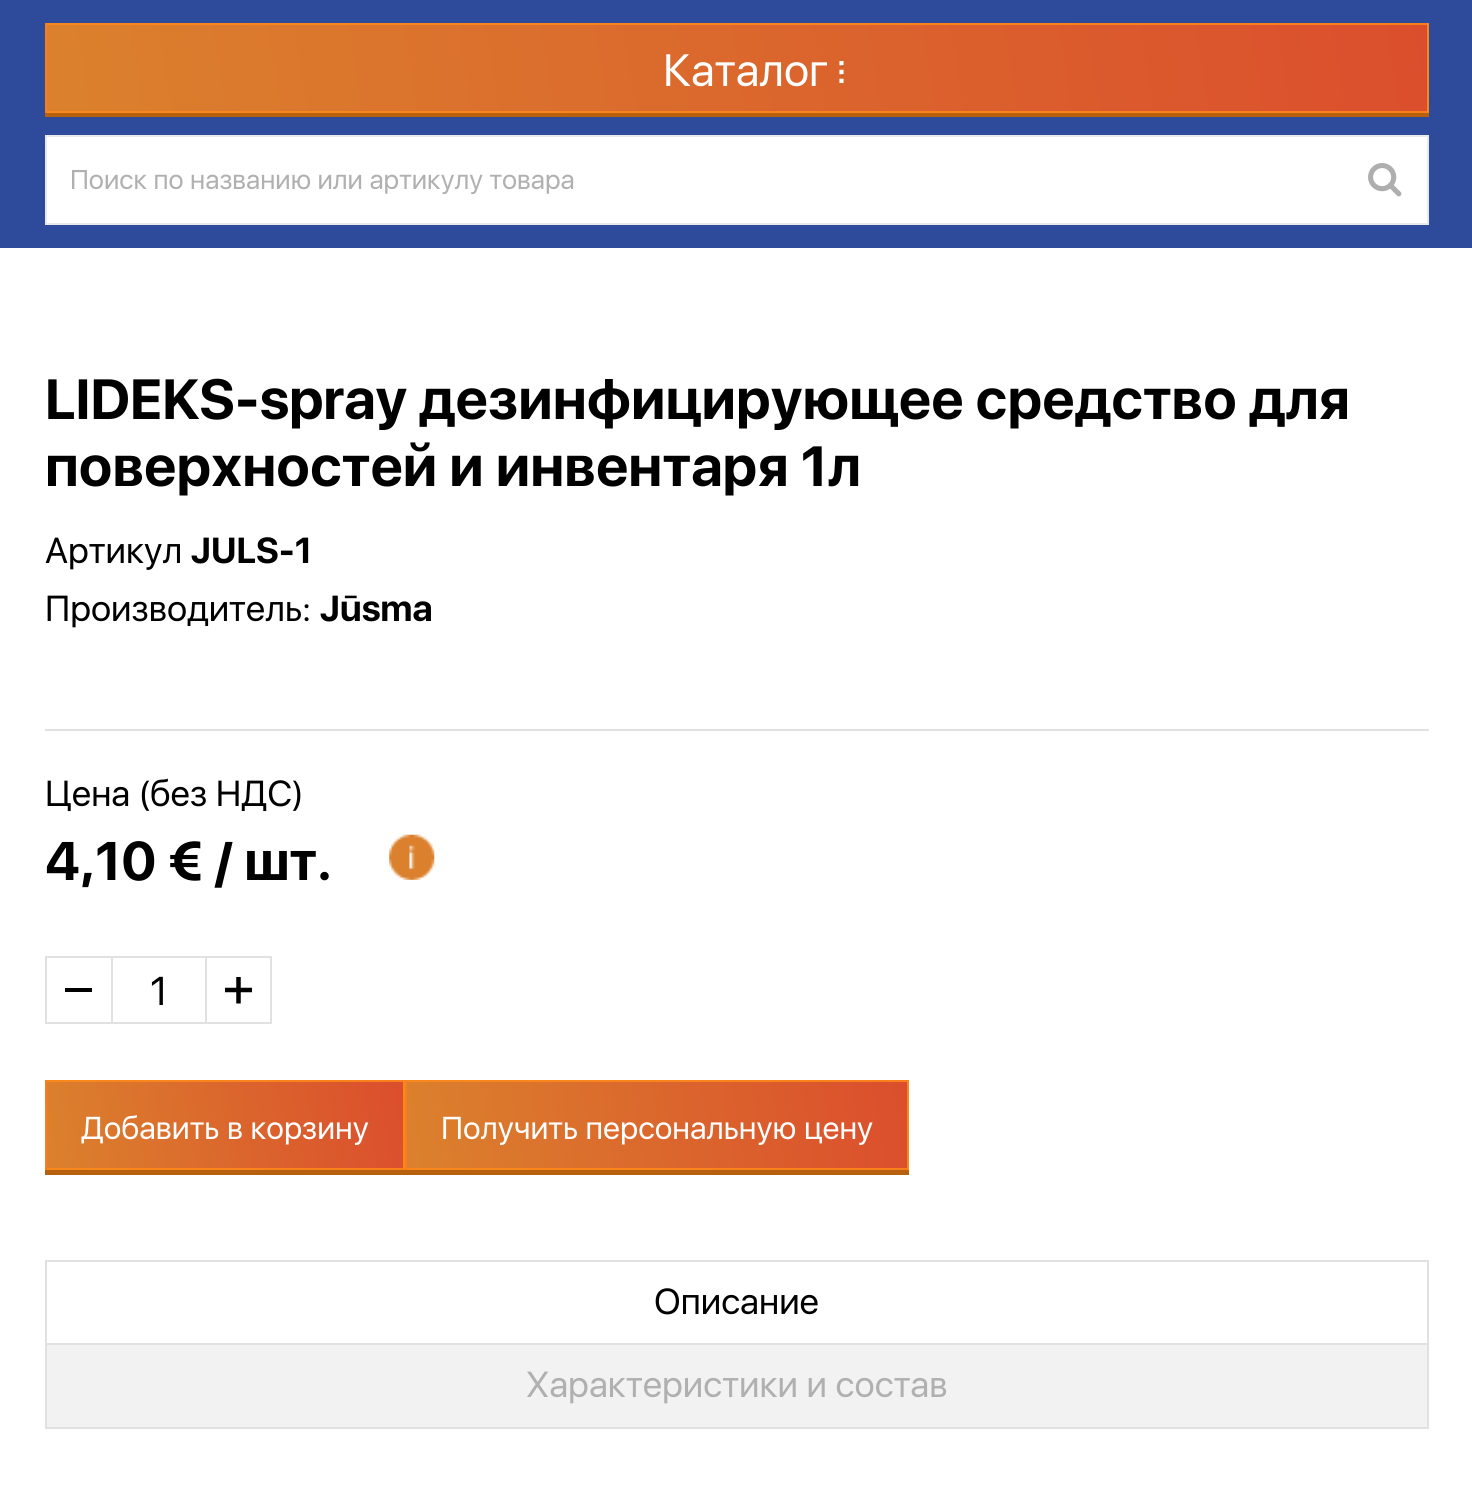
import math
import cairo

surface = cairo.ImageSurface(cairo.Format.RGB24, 1472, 1490)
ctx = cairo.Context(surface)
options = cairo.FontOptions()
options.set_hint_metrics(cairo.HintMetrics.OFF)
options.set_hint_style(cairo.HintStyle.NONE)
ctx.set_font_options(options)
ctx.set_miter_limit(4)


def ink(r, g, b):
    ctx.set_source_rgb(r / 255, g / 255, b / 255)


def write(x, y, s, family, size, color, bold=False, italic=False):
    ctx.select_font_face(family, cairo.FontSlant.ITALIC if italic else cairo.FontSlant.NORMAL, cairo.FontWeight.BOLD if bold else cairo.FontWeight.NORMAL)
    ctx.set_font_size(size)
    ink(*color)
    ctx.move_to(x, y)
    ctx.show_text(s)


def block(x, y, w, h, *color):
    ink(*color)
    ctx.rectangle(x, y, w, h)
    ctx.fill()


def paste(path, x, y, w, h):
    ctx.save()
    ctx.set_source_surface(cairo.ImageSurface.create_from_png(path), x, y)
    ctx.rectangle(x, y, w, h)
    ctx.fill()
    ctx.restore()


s1 = dict(family="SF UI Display", size=45, color=(255, 255, 255))
s2 = dict(family="SF UI Display", size=27, color=(176, 176, 176))
s3 = dict(family="SF UI Display", size=56.25, color=(0, 0, 0), bold=True)
s4 = dict(family="SF UI Display", size=36, color=(0, 0, 0))
s5 = dict(family="SF UI Display", size=36, color=(0, 0, 0), bold=True)
s6 = dict(family="SF UI Display", size=54, color=(0, 0, 0), bold=True)
s7 = dict(family="SF UI Display", size=40, color=(0, 0, 0))
s8 = dict(family="SF UI Display", size=31.5, color=(255, 255, 255))
s9 = dict(family="SF UI Display", size=36, color=(176, 176, 176))

ink(255, 255, 255)
ctx.paint()
block(0, 0, 1472, 248, 46, 74, 155)
ink(183, 97, 14)
ctx.new_path()
ctx.move_to(45, 112)
ctx.line_to(45, 117)
ctx.line_to(1429, 117)
ctx.line_to(1429, 27)
ctx.line_to(1429, 112)
ctx.close_path()
ctx.fill()
block(1427, 23, 2, 90, 219, 129, 45)
gradient = cairo.LinearGradient(37, -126, -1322, 90)
gradient.add_color_stop_rgba(0, 0.859, 0.306, 0.176, 1)
gradient.add_color_stop_rgba(1, 0.859, 0.506, 0.176, 1)
ctx.set_source(gradient)
ctx.rectangle(45, 23, 2, 2)
ctx.fill()
gradient = cairo.LinearGradient(1416, -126, 58, 90)
gradient.add_color_stop_rgba(0, 0.859, 0.306, 0.176, 1)
gradient.add_color_stop_rgba(1, 0.859, 0.506, 0.176, 1)
ctx.set_source(gradient)
ctx.rectangle(47, 23, 1380, 2)
ctx.fill()
gradient = cairo.LinearGradient(37, -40, -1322, 175)
gradient.add_color_stop_rgba(0, 0.859, 0.306, 0.176, 1)
gradient.add_color_stop_rgba(1, 0.859, 0.506, 0.176, 1)
ctx.set_source(gradient)
ctx.rectangle(45, 25, 2, 85)
ctx.fill()
gradient = cairo.LinearGradient(1416, -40, 58, 175)
gradient.add_color_stop_rgba(0, 0.859, 0.306, 0.176, 1)
gradient.add_color_stop_rgba(1, 0.859, 0.506, 0.176, 1)
ctx.set_source(gradient)
ctx.rectangle(47, 25, 1380, 85)
ctx.fill()
gradient = cairo.LinearGradient(37, 45, -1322, 261)
gradient.add_color_stop_rgba(0, 0.859, 0.306, 0.176, 1)
gradient.add_color_stop_rgba(1, 0.859, 0.506, 0.176, 1)
ctx.set_source(gradient)
ctx.rectangle(45, 110, 2, 3)
ctx.fill()
gradient = cairo.LinearGradient(1416, 45, 58, 261)
gradient.add_color_stop_rgba(0, 0.859, 0.306, 0.176, 1)
gradient.add_color_stop_rgba(1, 0.859, 0.506, 0.176, 1)
ctx.set_source(gradient)
ctx.rectangle(47, 110, 1380, 3)
ctx.fill()
ctx.rectangle(46, 24, 1382, 88)
ctx.set_source_rgba(1, 0.541, 0.098, 0.83)
ctx.stroke()
write(663, 86, "Каталог", **s1)
paste("pic1.png", 839, 61, 5, 22)
ctx.rectangle(46, 136, 1382, 88)
ctx.fill_preserve()
ink(233, 233, 233)
ctx.stroke()
write(70, 189, "Поиск по названию или артикулу товара", **s2)
paste("pic2.png", 1368, 163, 34, 34)
write(45, 419, "LIDEKS-spray дезинфицирующее средство для", **s3)
write(45, 486, "поверхностей и инвентаря 1л", **s3)
write(45, 563, "Артикул", **s4)
write(191, 563, "JULS-1", **s5)
write(45, 621, "Производитель:", **s4)
write(320, 621, "Jūsma", **s5)
block(45, 729, 1384, 2, 225, 225, 225)
write(45, 806, "Цена (без НДС)", **s4)
write(45, 880, "4,10 € / шт.", **s6)
paste("pic3.png", 389, 834, 46, 46)
block(65, 988, 27, 4, 0, 0, 0)
ctx.rectangle(46, 957, 66, 66)
ink(225, 225, 225)
ctx.stroke()
block(113, 956, 92, 2, 225, 225, 225)
block(113, 1022, 92, 2, 225, 225, 225)
write(150, 1005, "1", **s7)
paste("pic4.png", 225, 977, 27, 27)
ctx.rectangle(206, 957, 65, 66)
ink(225, 225, 225)
ctx.stroke()
block(45, 1170, 864, 5, 183, 97, 14)
block(403, 1080, 2, 2, 219, 129, 45)
gradient = cairo.LinearGradient(50, 1011, -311, 1068)
gradient.add_color_stop_rgba(0, 0.859, 0.306, 0.176, 1)
gradient.add_color_stop_rgba(1, 0.859, 0.506, 0.176, 1)
ctx.set_source(gradient)
ctx.rectangle(45, 1080, 2, 2)
ctx.fill()
gradient = cairo.LinearGradient(405, 1011, 45, 1068)
gradient.add_color_stop_rgba(0, 0.859, 0.306, 0.176, 1)
gradient.add_color_stop_rgba(1, 0.859, 0.506, 0.176, 1)
ctx.set_source(gradient)
ctx.rectangle(47, 1080, 356, 2)
ctx.fill()
gradient = cairo.LinearGradient(50, 1096, -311, 1154)
gradient.add_color_stop_rgba(0, 0.859, 0.306, 0.176, 1)
gradient.add_color_stop_rgba(1, 0.859, 0.506, 0.176, 1)
ctx.set_source(gradient)
ctx.rectangle(45, 1082, 2, 86)
ctx.fill()
gradient = cairo.LinearGradient(405, 1096, 45, 1154)
gradient.add_color_stop_rgba(0, 0.859, 0.306, 0.176, 1)
gradient.add_color_stop_rgba(1, 0.859, 0.506, 0.176, 1)
ctx.set_source(gradient)
ctx.rectangle(47, 1082, 356, 86)
ctx.fill()
gradient = cairo.LinearGradient(761, 1096, 400, 1154)
gradient.add_color_stop_rgba(0, 0.859, 0.306, 0.176, 1)
gradient.add_color_stop_rgba(1, 0.859, 0.506, 0.176, 1)
ctx.set_source(gradient)
ctx.rectangle(403, 1082, 2, 86)
ctx.fill()
gradient = cairo.LinearGradient(50, 1182, -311, 1239)
gradient.add_color_stop_rgba(0, 0.859, 0.306, 0.176, 1)
gradient.add_color_stop_rgba(1, 0.859, 0.506, 0.176, 1)
ctx.set_source(gradient)
ctx.rectangle(45, 1168, 2, 2)
ctx.fill()
gradient = cairo.LinearGradient(405, 1182, 45, 1239)
gradient.add_color_stop_rgba(0, 0.859, 0.306, 0.176, 1)
gradient.add_color_stop_rgba(1, 0.859, 0.506, 0.176, 1)
ctx.set_source(gradient)
ctx.rectangle(47, 1168, 356, 2)
ctx.fill()
gradient = cairo.LinearGradient(761, 1182, 400, 1239)
gradient.add_color_stop_rgba(0, 0.859, 0.306, 0.176, 1)
gradient.add_color_stop_rgba(1, 0.859, 0.506, 0.176, 1)
ctx.set_source(gradient)
ctx.rectangle(403, 1168, 2, 2)
ctx.fill()
ctx.rectangle(46, 1081, 358, 88)
ctx.set_source_rgba(1, 0.541, 0.098, 0.83)
ctx.stroke()
write(81, 1139, "Добавить в корзину", **s8)
block(907, 1080, 2, 2, 219, 129, 45)
gradient = cairo.LinearGradient(408, 1000, -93, 1079)
gradient.add_color_stop_rgba(0, 0.859, 0.306, 0.176, 1)
gradient.add_color_stop_rgba(1, 0.859, 0.506, 0.176, 1)
ctx.set_source(gradient)
ctx.rectangle(405, 1080, 2, 2)
ctx.fill()
gradient = cairo.LinearGradient(907, 1000, 407, 1079)
gradient.add_color_stop_rgba(0, 0.859, 0.306, 0.176, 1)
gradient.add_color_stop_rgba(1, 0.859, 0.506, 0.176, 1)
ctx.set_source(gradient)
ctx.rectangle(407, 1080, 500, 2)
ctx.fill()
gradient = cairo.LinearGradient(408, 1085, -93, 1165)
gradient.add_color_stop_rgba(0, 0.859, 0.306, 0.176, 1)
gradient.add_color_stop_rgba(1, 0.859, 0.506, 0.176, 1)
ctx.set_source(gradient)
ctx.rectangle(405, 1082, 2, 86)
ctx.fill()
gradient = cairo.LinearGradient(907, 1085, 407, 1165)
gradient.add_color_stop_rgba(0, 0.859, 0.306, 0.176, 1)
gradient.add_color_stop_rgba(1, 0.859, 0.506, 0.176, 1)
ctx.set_source(gradient)
ctx.rectangle(407, 1082, 500, 86)
ctx.fill()
gradient = cairo.LinearGradient(1407, 1085, 906, 1165)
gradient.add_color_stop_rgba(0, 0.859, 0.306, 0.176, 1)
gradient.add_color_stop_rgba(1, 0.859, 0.506, 0.176, 1)
ctx.set_source(gradient)
ctx.rectangle(907, 1082, 2, 86)
ctx.fill()
gradient = cairo.LinearGradient(408, 1171, -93, 1250)
gradient.add_color_stop_rgba(0, 0.859, 0.306, 0.176, 1)
gradient.add_color_stop_rgba(1, 0.859, 0.506, 0.176, 1)
ctx.set_source(gradient)
ctx.rectangle(405, 1168, 2, 2)
ctx.fill()
gradient = cairo.LinearGradient(907, 1171, 407, 1250)
gradient.add_color_stop_rgba(0, 0.859, 0.306, 0.176, 1)
gradient.add_color_stop_rgba(1, 0.859, 0.506, 0.176, 1)
ctx.set_source(gradient)
ctx.rectangle(407, 1168, 500, 2)
ctx.fill()
gradient = cairo.LinearGradient(1407, 1171, 906, 1250)
gradient.add_color_stop_rgba(0, 0.859, 0.306, 0.176, 1)
gradient.add_color_stop_rgba(1, 0.859, 0.506, 0.176, 1)
ctx.set_source(gradient)
ctx.rectangle(907, 1168, 2, 2)
ctx.fill()
ctx.rectangle(406, 1081, 502, 88)
ctx.set_source_rgba(1, 0.541, 0.098, 0.83)
ctx.stroke()
write(441, 1139, "Получить персональную цену", **s8)
block(45, 1427, 1384, 2, 225, 225, 225)
block(45, 1260, 1384, 2, 225, 225, 225)
block(1427, 1260, 2, 83, 225, 225, 225)
block(45, 1260, 2, 83, 225, 225, 225)
write(654, 1314, "Описание", **s4)
block(47, 1345, 1380, 82, 242, 242, 242)
block(45, 1343, 1384, 2, 225, 225, 225)
block(1427, 1343, 2, 84, 225, 225, 225)
block(45, 1343, 2, 84, 225, 225, 225)
write(526, 1397, "Характеристики и состав", **s9)
surface.write_to_png("screenshot.png")
